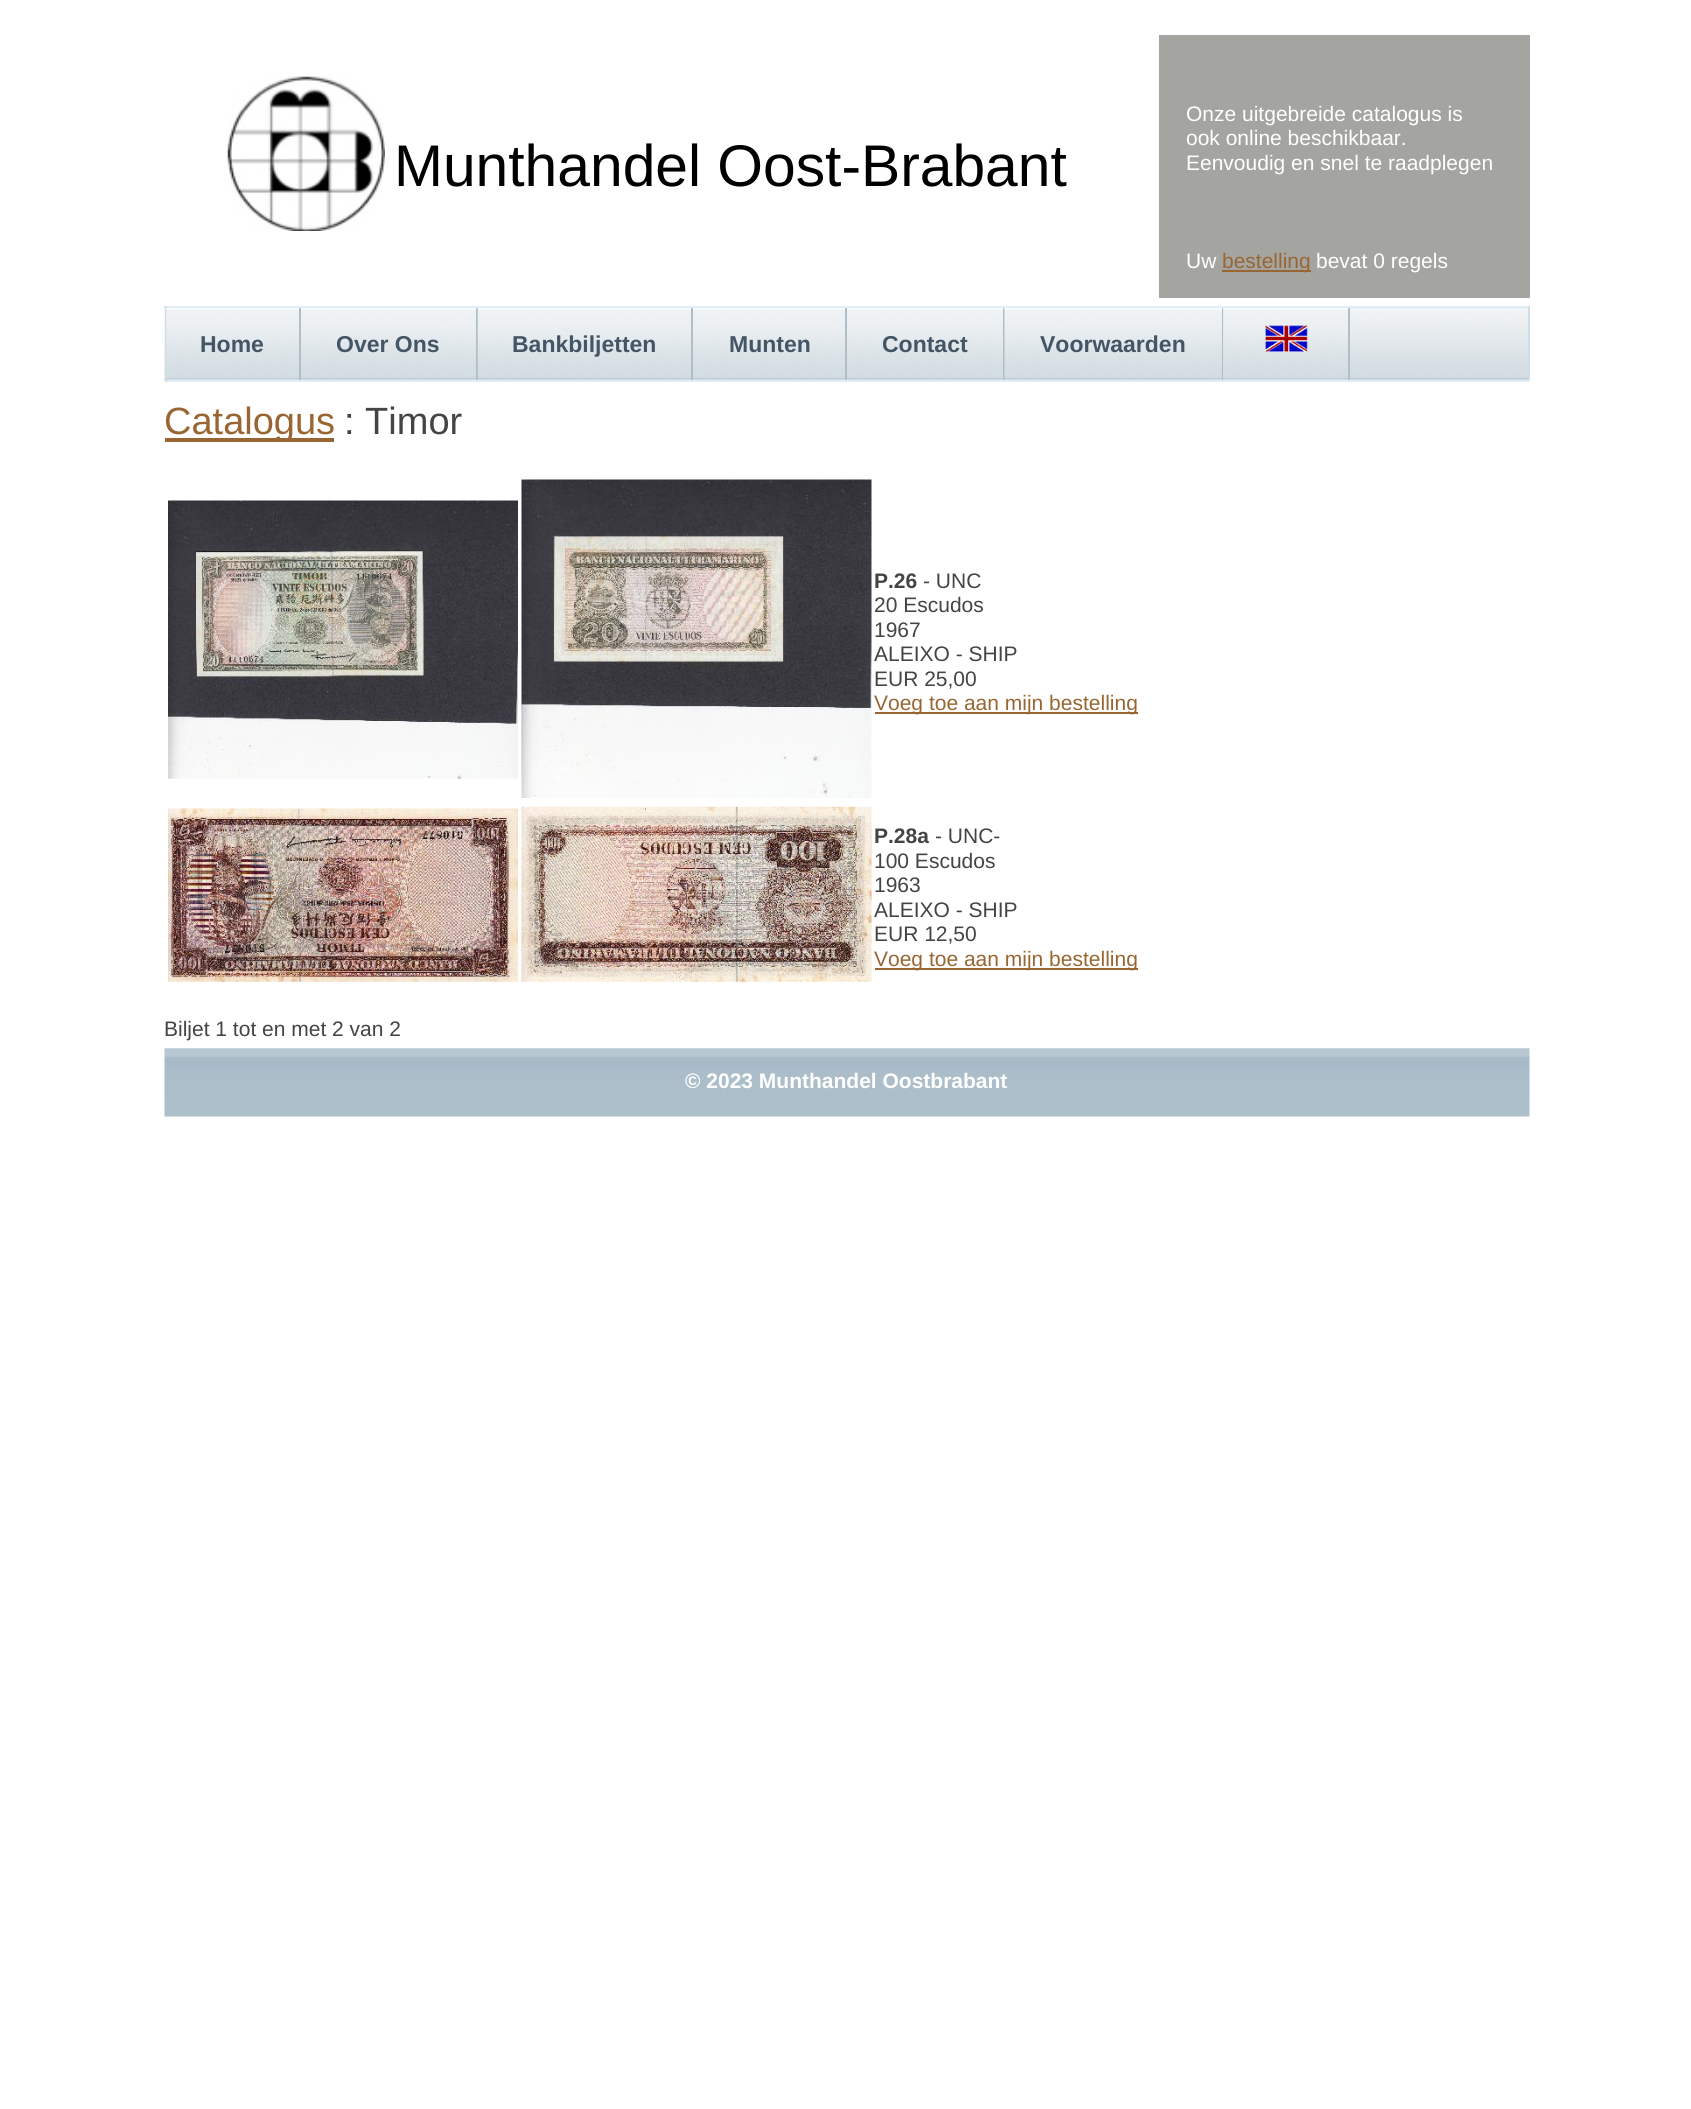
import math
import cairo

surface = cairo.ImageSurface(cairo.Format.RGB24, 1691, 2109)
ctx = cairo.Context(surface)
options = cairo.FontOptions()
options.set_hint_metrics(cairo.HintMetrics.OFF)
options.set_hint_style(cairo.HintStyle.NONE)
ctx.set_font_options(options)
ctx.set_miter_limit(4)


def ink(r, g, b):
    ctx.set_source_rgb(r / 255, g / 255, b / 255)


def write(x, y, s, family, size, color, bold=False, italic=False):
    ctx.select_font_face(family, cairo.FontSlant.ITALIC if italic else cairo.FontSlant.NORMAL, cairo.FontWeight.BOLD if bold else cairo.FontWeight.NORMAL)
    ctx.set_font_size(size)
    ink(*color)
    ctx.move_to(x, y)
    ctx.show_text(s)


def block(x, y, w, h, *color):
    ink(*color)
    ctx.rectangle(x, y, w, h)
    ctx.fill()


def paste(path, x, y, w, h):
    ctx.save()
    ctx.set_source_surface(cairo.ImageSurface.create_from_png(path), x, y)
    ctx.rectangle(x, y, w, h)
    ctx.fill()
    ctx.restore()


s1 = dict(family="Liberation Sans", size=58.75, color=(0, 0, 0))
s2 = dict(family="Liberation Sans", size=21, color=(255, 255, 255))
s3 = dict(family="Liberation Sans", size=21, color=(153, 102, 51))
s4 = dict(family="Liberation Sans", size=23, color=(68, 85, 102), bold=True)
s5 = dict(family="Liberation Sans", size=38, color=(153, 102, 51))
s6 = dict(family="Liberation Sans", size=38, color=(68, 68, 68))
s7 = dict(family="Liberation Sans", size=21, color=(68, 68, 68), bold=True)
s8 = dict(family="Liberation Sans", size=21, color=(68, 68, 68))
s9 = dict(family="Liberation Sans", size=21, color=(255, 255, 255), bold=True)

ink(255, 255, 255)
ctx.paint()
paste("pic1.png", 227, 76, 158, 155)
write(394, 186, "Munthandel Oost-Brabant", **s1)
block(1159, 35, 371, 263, 164, 164, 160)
write(1186, 121, "Onze uitgebreide catalogus is", **s2)
write(1186, 145, "ook online beschikbaar.", **s2)
write(1186, 170, "Eenvoudig en snel te raadplegen", **s2)
write(1186, 268, "Uw", **s2)
block(1222, 270, 89, 2, 153, 102, 51)
write(1222, 268, "bestelling", **s3)
write(1316, 268, "bevat 0 regels", **s2)
paste("pic2.png", 164, 306, 1364, 76)
block(165, 306, 1365, 2, 223, 238, 247)
block(1528, 306, 2, 76, 207, 222, 231)
block(165, 380, 1365, 2, 223, 238, 247)
block(165, 306, 2, 76, 207, 222, 231)
block(166, 308, 133, 72, 217, 225, 229)
paste("pic3.png", 166, 308, 133, 72)
block(299, 308, 2, 72, 175, 190, 199)
write(200, 352, "Home", **s4)
paste("pic4.png", 301, 308, 175, 72)
block(476, 308, 2, 72, 175, 190, 199)
write(336, 352, "Over Ons", **s4)
paste("pic5.png", 477, 308, 214, 72)
block(691, 308, 2, 72, 175, 190, 199)
write(512, 352, "Bankbiljetten", **s4)
paste("pic6.png", 693, 308, 152, 72)
block(845, 308, 2, 72, 175, 190, 199)
write(729, 352, "Munten", **s4)
paste("pic7.png", 847, 308, 156, 72)
block(1003, 308, 2, 72, 175, 190, 199)
write(882, 352, "Contact", **s4)
paste("pic8.png", 1004, 308, 218, 72)
block(1222, 308, 1, 72, 175, 190, 199)
write(1040, 352, "Voorwaarden", **s4)
block(1223, 308, 125, 72, 217, 225, 229)
paste("pic9.png", 1223, 308, 125, 72)
block(1348, 308, 2, 72, 175, 190, 199)
paste("pic10.png", 1265, 325, 43, 27)
block(165, 438, 169, 4, 153, 102, 51)
write(164, 434, "Catalogus", **s5)
write(344, 434, ": Timor", **s6)
paste("pic11.png", 168, 500, 350, 279)
paste("pic12.png", 521, 479, 351, 319)
write(874, 588, "P.26", **s7)
write(923, 588, "- UNC", **s8)
write(874, 612, "20 Escudos", **s8)
write(874, 637, "1967", **s8)
write(874, 661, "ALEIXO - SHIP", **s8)
write(874, 686, "EUR 25,00", **s8)
block(875, 712, 263, 2, 153, 102, 51)
write(874, 710, "Voeg toe aan mijn bestelling", **s3)
paste("pic13.png", 168, 808, 350, 174)
paste("pic14.png", 521, 806, 351, 176)
write(874, 843, "P.28a", **s7)
write(935, 843, "- UNC-", **s8)
write(874, 868, "100 Escudos", **s8)
write(874, 892, "1963", **s8)
write(874, 917, "ALEIXO - SHIP", **s8)
write(874, 941, "EUR 12,50", **s8)
block(875, 968, 263, 2, 153, 102, 51)
write(874, 966, "Voeg toe aan mijn bestelling", **s3)
write(164, 1036, "Biljet 1 tot en met 2 van 2", **s8)
paste("pic15.png", 164, 1048, 1366, 69)
write(685, 1088, "© 2023 Munthandel Oostbrabant", **s9)
surface.write_to_png("screenshot.png")
